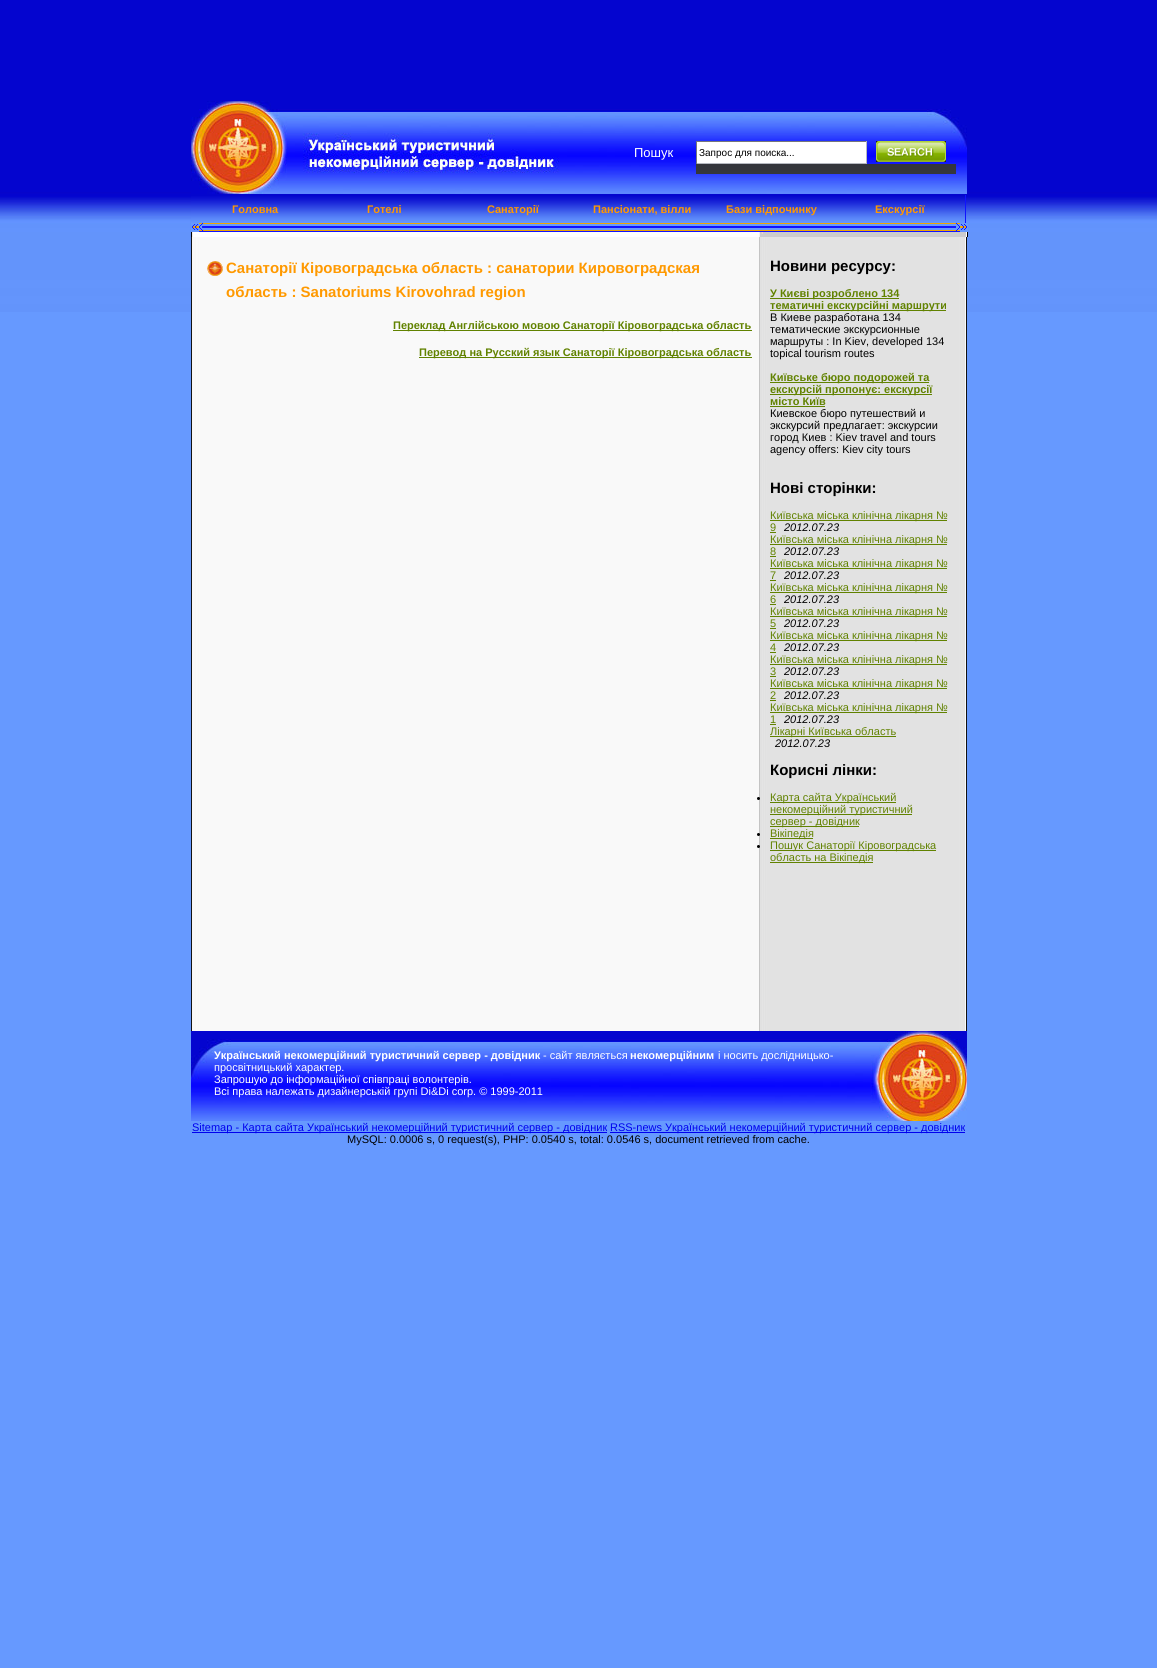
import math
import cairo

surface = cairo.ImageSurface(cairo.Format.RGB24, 1157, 1668)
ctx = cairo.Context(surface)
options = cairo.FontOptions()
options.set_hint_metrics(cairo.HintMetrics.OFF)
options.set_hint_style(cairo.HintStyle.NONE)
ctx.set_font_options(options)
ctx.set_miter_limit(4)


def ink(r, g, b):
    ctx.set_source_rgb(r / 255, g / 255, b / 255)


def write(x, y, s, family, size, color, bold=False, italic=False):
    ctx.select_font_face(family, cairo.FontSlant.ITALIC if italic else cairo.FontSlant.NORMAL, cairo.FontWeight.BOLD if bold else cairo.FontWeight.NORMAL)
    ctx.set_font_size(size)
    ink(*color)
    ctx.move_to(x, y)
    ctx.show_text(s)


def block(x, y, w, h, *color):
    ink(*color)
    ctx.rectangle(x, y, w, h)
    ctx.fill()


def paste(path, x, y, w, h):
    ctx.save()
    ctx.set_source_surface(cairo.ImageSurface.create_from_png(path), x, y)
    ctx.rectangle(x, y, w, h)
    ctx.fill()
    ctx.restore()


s1 = dict(family="Liberation Sans", size=13, color=(255, 255, 255))
s2 = dict(family="Liberation Sans", size=10, color=(0, 0, 0))
s3 = dict(family="Liberation Sans", size=11, color=(255, 153, 0), bold=True)
s4 = dict(family="Liberation Sans", size=15, color=(255, 153, 0), bold=True)
s5 = dict(family="Liberation Sans", size=11, color=(97, 130, 0), bold=True)
s6 = dict(family="Liberation Sans", size=15, color=(0, 0, 0), bold=True)
s7 = dict(family="Liberation Sans", size=11, color=(0, 0, 0))
s8 = dict(family="Liberation Sans", size=11, color=(97, 130, 0))
s9 = dict(family="Liberation Sans", size=11, color=(0, 0, 0), italic=True)
s10 = dict(family="Liberation Sans", size=11, color=(255, 255, 255), bold=True)
s11 = dict(family="Liberation Sans", size=11, color=(255, 255, 255))
s12 = dict(family="Liberation Sans", size=11, color=(0, 0, 238))

ink(102, 153, 255)
ctx.paint()
paste("pic1.png", 0, 0, 1157, 312)
paste("pic2.png", 191, 237, 776, 794)
paste("pic3.png", 191, 101, 776, 93)
write(634, 157, "Пошук", **s1)
block(697, 142, 169, 21, 255, 255, 255)
block(696, 141, 171, 1, 117, 118, 123)
block(866, 141, 1, 23, 182, 185, 192)
block(696, 163, 171, 1, 182, 185, 192)
block(696, 141, 1, 23, 117, 118, 123)
write(699, 156, "Запрос для поиска...", **s2)
paste("pic4.png", 876, 141, 70, 21)
ctx.set_source_rgba(0.212, 0.216, 0.196, 0.95)
ctx.rectangle(696, 164, 260, 10)
ctx.fill()
paste("pic5.png", 191, 194, 777, 43)
paste("pic6.png", 191, 195, 129, 28)
write(232, 213, "Головна", **s3)
paste("pic6.png", 320, 195, 129, 28)
write(367, 213, "Готелі", **s3)
paste("pic6.png", 449, 195, 129, 28)
write(487, 213, "Санаторії", **s3)
paste("pic6.png", 578, 195, 129, 28)
write(593, 213, "Пансіонати, вілли", **s3)
paste("pic6.png", 707, 195, 129, 28)
write(726, 213, "Бази відпочинку", **s3)
paste("pic6.png", 836, 195, 129, 28)
write(875, 213, "Екскурсії", **s3)
paste("pic7.png", 207, 261, 16, 15)
write(226, 273, "Санаторії Кіровоградська область : санатории Кировоградская", **s4)
write(226, 297, "область : Sanatoriums Kirovohrad region", **s4)
block(393, 330, 359, 1, 97, 130, 0)
write(393, 329, "Переклад Англійською мовою Санаторії Кіровоградська область", **s5)
block(419, 357, 333, 1, 97, 130, 0)
write(419, 356, "Перевод на Русский язык Санаторії Кіровоградська область", **s5)
write(770, 271, "Новини ресурсу:", **s6)
block(770, 298, 129, 1, 97, 130, 0)
write(770, 297, "У Києві розроблено 134", **s5)
block(770, 310, 176, 1, 97, 130, 0)
write(770, 309, "тематичні екскурсійні маршрути", **s5)
write(770, 321, "В Киеве разработана 134", **s7)
write(770, 333, "тематические экскурсионные", **s7)
write(770, 345, "маршруты : In Kiev, developed 134", **s7)
write(770, 357, "topical tourism routes", **s7)
block(770, 382, 159, 1, 97, 130, 0)
write(770, 381, "Київське бюро подорожей та", **s5)
block(770, 394, 162, 1, 97, 130, 0)
write(770, 393, "екскурсій пропонує: екскурсії", **s5)
write(770, 405, "місто Київ", **s5)
block(770, 406, 55, 1, 97, 130, 0)
write(770, 417, "Киевское бюро путешествий и", **s7)
write(770, 429, "экскурсий предлагает: экскурсии", **s7)
write(770, 441, "город Киев : Kiev travel and tours", **s7)
write(770, 453, "agency offers: Kiev city tours", **s7)
write(770, 493, "Нові сторінки:", **s6)
block(770, 520, 177, 1, 97, 130, 0)
write(770, 519, "Київська міська клінічна лікарня №", **s8)
write(770, 531, "9", **s8)
block(770, 532, 6, 1, 97, 130, 0)
write(784, 531, "2012.07.23", **s9)
block(770, 544, 177, 1, 97, 130, 0)
write(770, 543, "Київська міська клінічна лікарня №", **s8)
write(770, 555, "8", **s8)
block(770, 556, 6, 1, 97, 130, 0)
write(784, 555, "2012.07.23", **s9)
block(770, 568, 177, 1, 97, 130, 0)
write(770, 567, "Київська міська клінічна лікарня №", **s8)
write(770, 579, "7", **s8)
block(770, 580, 6, 1, 97, 130, 0)
write(784, 579, "2012.07.23", **s9)
block(770, 592, 177, 1, 97, 130, 0)
write(770, 591, "Київська міська клінічна лікарня №", **s8)
write(770, 603, "6", **s8)
block(770, 604, 6, 1, 97, 130, 0)
write(784, 603, "2012.07.23", **s9)
block(770, 616, 177, 1, 97, 130, 0)
write(770, 615, "Київська міська клінічна лікарня №", **s8)
write(770, 627, "5", **s8)
block(770, 628, 6, 1, 97, 130, 0)
write(784, 627, "2012.07.23", **s9)
block(770, 640, 177, 1, 97, 130, 0)
write(770, 639, "Київська міська клінічна лікарня №", **s8)
write(770, 651, "4", **s8)
block(770, 652, 6, 1, 97, 130, 0)
write(784, 651, "2012.07.23", **s9)
block(770, 664, 177, 1, 97, 130, 0)
write(770, 663, "Київська міська клінічна лікарня №", **s8)
write(770, 675, "3", **s8)
block(770, 676, 6, 1, 97, 130, 0)
write(784, 675, "2012.07.23", **s9)
block(770, 688, 177, 1, 97, 130, 0)
write(770, 687, "Київська міська клінічна лікарня №", **s8)
write(770, 699, "2", **s8)
block(770, 700, 6, 1, 97, 130, 0)
write(784, 699, "2012.07.23", **s9)
block(770, 712, 177, 1, 97, 130, 0)
write(770, 711, "Київська міська клінічна лікарня №", **s8)
write(770, 723, "1", **s8)
block(770, 724, 6, 1, 97, 130, 0)
write(784, 723, "2012.07.23", **s9)
block(770, 736, 126, 1, 97, 130, 0)
write(770, 735, "Лікарні Київська область", **s8)
write(775, 747, "2012.07.23", **s9)
write(770, 775, "Корисні лінки:", **s6)
ctx.new_path()
ctx.arc(758.5, 798.5, 1.5, 0, 2 * math.pi)
ctx.fill()
block(770, 802, 126, 1, 97, 130, 0)
write(770, 801, "Карта сайта Український", **s8)
block(770, 814, 142, 1, 97, 130, 0)
write(770, 813, "некомерційний туристичний", **s8)
block(770, 826, 89, 1, 97, 130, 0)
write(770, 825, "сервер - довідник", **s8)
ink(0, 0, 0)
ctx.new_path()
ctx.arc(758.5, 834.5, 1.5, 0, 2 * math.pi)
ctx.fill()
block(770, 838, 43, 1, 97, 130, 0)
write(770, 837, "Вікіпедія", **s8)
ink(0, 0, 0)
ctx.new_path()
ctx.arc(758.5, 846.5, 1.5, 0, 2 * math.pi)
ctx.fill()
block(770, 850, 166, 1, 97, 130, 0)
write(770, 849, "Пошук Санаторії Кіровоградська", **s8)
block(770, 862, 103, 1, 97, 130, 0)
write(770, 861, "область на Вікіпедія", **s8)
paste("pic8.png", 191, 1031, 776, 90)
write(214, 1059, "Український некомерційний туристичний сервер - довідник", **s10)
write(543, 1059, "- сайт являється", **s11)
write(630, 1059, "некомерційним", **s10)
write(718, 1059, "і носить дослідницько-", **s11)
write(214, 1071, "просвітницький характер.", **s11)
write(214, 1083, "Запрошую до інформаційної співпраці волонтерів.", **s11)
write(214, 1095, "Всі права належать дизайнерській групі Di&Di corp. © 1999-2011", **s11)
block(192, 1132, 415, 1, 0, 0, 238)
write(192, 1131, "Sitemap - Карта сайта Український некомерційний туристичний сервер - довідник", **s12)
block(610, 1132, 355, 1, 0, 0, 238)
write(610, 1131, "RSS-news Український некомерційний туристичний сервер - довідник", **s12)
write(347, 1143, "MySQL: 0.0006 s, 0 request(s), PHP: 0.0540 s, total: 0.0546 s, document retrieved from cache.", **s7)
surface.write_to_png("screenshot.png")
